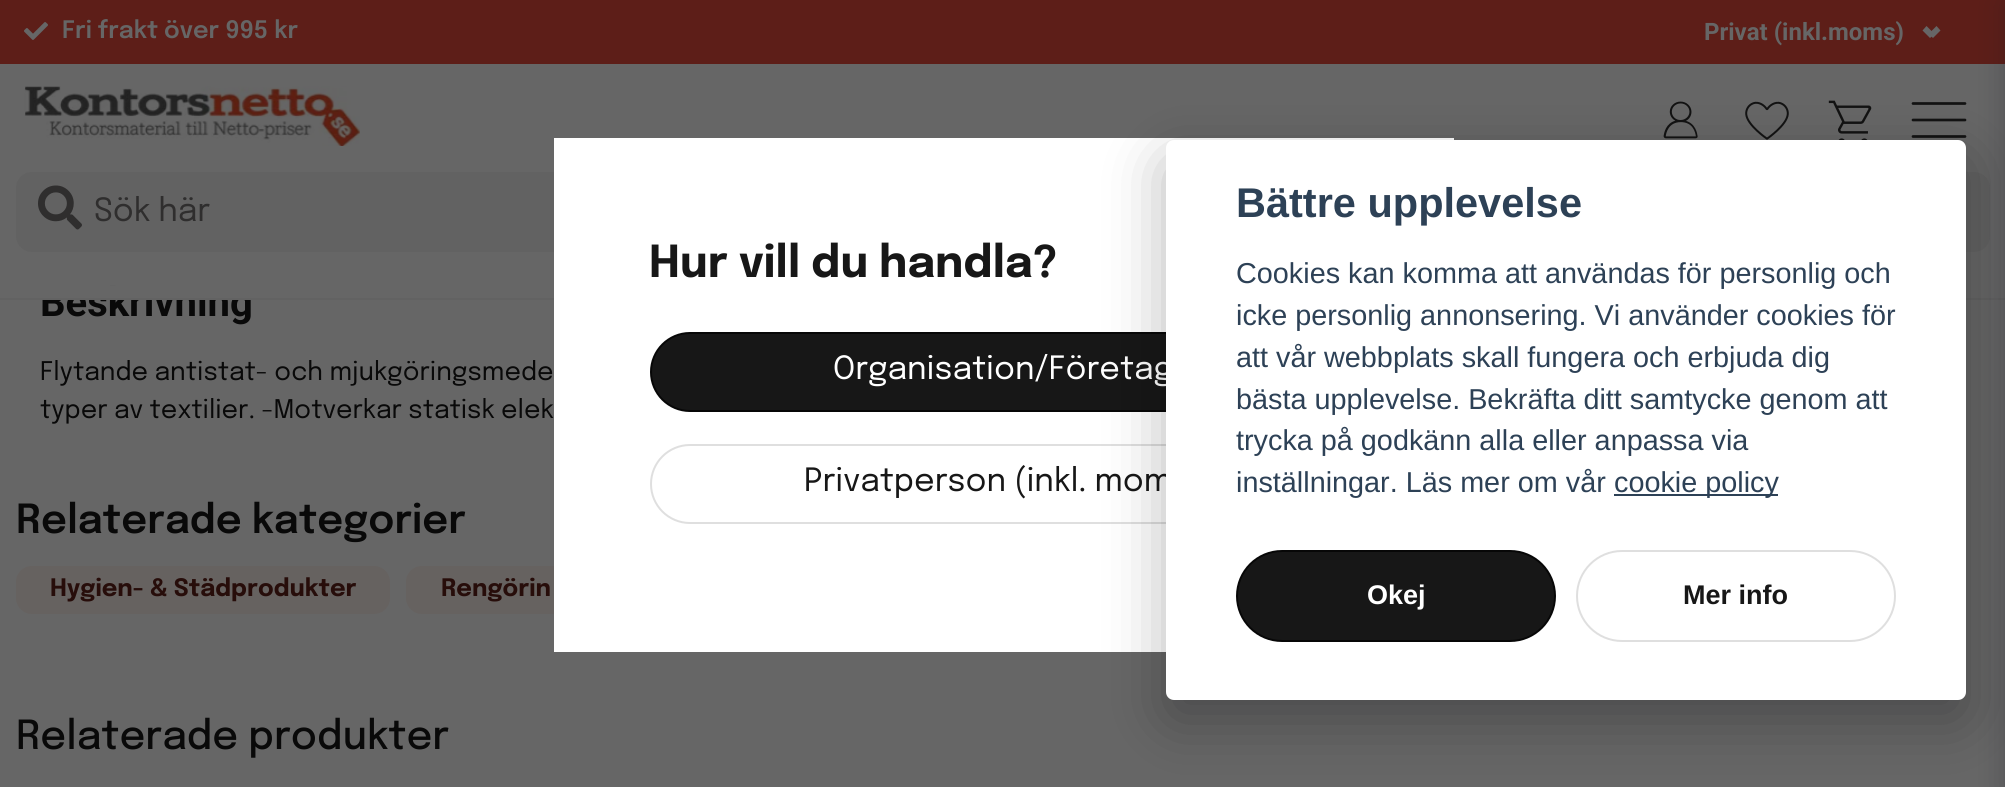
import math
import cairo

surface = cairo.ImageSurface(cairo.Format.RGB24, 2005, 787)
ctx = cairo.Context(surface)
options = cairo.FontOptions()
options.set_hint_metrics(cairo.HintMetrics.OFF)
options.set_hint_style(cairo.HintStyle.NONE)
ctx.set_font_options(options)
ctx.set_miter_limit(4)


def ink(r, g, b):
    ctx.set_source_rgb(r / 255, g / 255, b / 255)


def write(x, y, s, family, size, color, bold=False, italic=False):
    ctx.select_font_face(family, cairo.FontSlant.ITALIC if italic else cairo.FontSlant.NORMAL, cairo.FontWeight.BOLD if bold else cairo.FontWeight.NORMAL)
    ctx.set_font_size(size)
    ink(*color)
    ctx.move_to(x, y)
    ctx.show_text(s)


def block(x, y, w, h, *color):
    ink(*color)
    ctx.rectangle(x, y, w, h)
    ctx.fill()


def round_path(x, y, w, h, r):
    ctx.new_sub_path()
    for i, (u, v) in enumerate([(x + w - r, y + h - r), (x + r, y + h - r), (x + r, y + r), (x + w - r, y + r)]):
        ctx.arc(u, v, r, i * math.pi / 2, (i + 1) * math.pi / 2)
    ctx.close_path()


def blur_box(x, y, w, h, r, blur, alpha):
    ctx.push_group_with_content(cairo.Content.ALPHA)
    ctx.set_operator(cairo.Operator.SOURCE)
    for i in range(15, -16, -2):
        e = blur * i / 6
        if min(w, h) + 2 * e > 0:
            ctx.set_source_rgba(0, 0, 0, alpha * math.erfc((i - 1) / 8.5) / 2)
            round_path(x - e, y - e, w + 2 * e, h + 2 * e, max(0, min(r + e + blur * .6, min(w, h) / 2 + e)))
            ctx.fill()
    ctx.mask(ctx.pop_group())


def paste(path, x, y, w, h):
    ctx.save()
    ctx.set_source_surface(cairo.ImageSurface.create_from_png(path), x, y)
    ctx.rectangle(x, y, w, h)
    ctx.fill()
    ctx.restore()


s1 = dict(family="Roboto", size=40, color=(9, 9, 9), bold=True)
s2 = dict(family="Epilogue SemiBold", size=24, color=(102, 102, 102))
s3 = dict(family="Roboto", size=24, color=(102, 102, 102), bold=True)
s4 = dict(family="Epilogue", size=32, color=(47, 46, 46))
s5 = dict(family="Epilogue", size=25.6, color=(9, 9, 9))
s6 = dict(family="Epilogue SemiBold", size=40, color=(9, 9, 9))
s7 = dict(family="Epilogue", size=24, color=(39, 13, 10), bold=True)
s8 = dict(family="Epilogue Medium", size=40, color=(9, 9, 9))
s9 = dict(family="Epilogue", size=44, color=(23, 23, 23), bold=True)
s10 = dict(family="Epilogue", size=32, color=(255, 255, 255))
s11 = dict(family="Epilogue", size=32, color=(23, 23, 23))
s12 = dict(family="Liberation Sans", size=41.5, color=(45, 65, 86), bold=True)
s13 = dict(family="Liberation Sans", size=28.8, color=(45, 65, 86))
s14 = dict(family="Liberation Sans", size=27, color=(255, 255, 255), bold=True)
s15 = dict(family="Liberation Sans", size=27, color=(23, 23, 23), bold=True)

ink(102, 102, 102)
ctx.paint()
write(40, 316, "Beskrivning", **s1)
block(42, 286, 209, 12, 102, 102, 102)
block(0, 298, 2005, 2, 98, 98, 98)
block(0, 0, 2005, 64, 93, 30, 24)
paste("pic1.png", 24, 22, 24, 18)
write(62, 38, "Fri frakt över 995 kr", **s2)
write(1704, 40, "Privat (inkl.moms)", **s3)
ctx.new_path()
ctx.move_to(1928.5, 34)
ctx.line_to(1936.5, 26)
ctx.line_to(1940.5, 30.5)
ctx.line_to(1933, 38)
ctx.close_path()
ctx.fill()
ctx.new_path()
ctx.move_to(1922.5, 30.5)
ctx.line_to(1926.5, 26)
ctx.line_to(1934.5, 34)
ctx.line_to(1930, 38)
ctx.close_path()
ctx.fill()
paste("pic2.png", 24, 86, 336, 60)
paste("pic3.png", 1663, 101, 35, 38)
paste("pic4.png", 1745, 101, 44, 39)
paste("pic5.png", 1828, 100, 44, 40)
ctx.new_path()
ctx.move_to(1965, 103.5)
ctx.line_to(1913, 103.5)
ctx.move_to(1965, 120)
ctx.line_to(1913, 120)
ctx.move_to(1965, 136.5)
ctx.line_to(1913, 136.5)
ink(18, 18, 18)
ctx.set_line_width(2.7)
ctx.set_line_cap(cairo.LineCap.ROUND)
ctx.stroke()
ink(98, 98, 98)
round_path(16, 172, 1974, 80, 16)
ctx.fill()
paste("pic6.png", 38, 185, 44, 45)
write(94, 221, "Sök här", **s4)
ink(24, 26, 35)
blur_box(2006, 2, 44, 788, 0, 15, 0.3)
write(40, 380, "Flytande antistat- och mjukgöringsmede", **s5)
write(40, 418, "typer av textilier. -Motverkar statisk elek", **s5)
write(16, 533, "Relaterade kategorier", **s6)
ink(102, 98, 96)
round_path(16, 566, 374, 48, 16)
ctx.fill()
write(50, 596, "Hygien- & Städprodukter", **s7)
ink(102, 98, 96)
round_path(406, 566, 332, 48, 16)
ctx.fill()
write(441, 596, "Rengörin", **s7)
write(16, 749, "Relaterade produkter", **s8)
block(554, 138, 900, 514, 255, 255, 255)
write(649, 277, "Hur vill du handla?", **s9)
round_path(651, 333, 706, 78, 39)
ctx.fill_preserve()
ink(7, 7, 7)
ctx.set_line_width(2)
ctx.set_line_cap(cairo.LineCap.BUTT)
ctx.stroke()
write(833, 379, "Organisation/Företag", **s10)
round_path(651, 445, 706, 78, 39)
ink(223, 223, 223)
ctx.stroke()
write(804, 491, "Privatperson (inkl. mom", **s11)
ink(2, 2, 3)
blur_box(1166, 160, 800, 560, 8, 30, 0.28)
ink(255, 255, 255)
round_path(1166, 140, 800, 560, 8)
ctx.fill()
write(1236, 217, "Bättre upplevelse", **s12)
write(1236, 283, "Cookies kan komma att användas för personlig och", **s13)
write(1236, 325, "icke personlig annonsering. Vi använder cookies för", **s13)
write(1236, 367, "att vår webbplats skall fungera och erbjuda dig", **s13)
write(1236, 409, "bästa upplevelse. Bekräfta ditt samtycke genom att", **s13)
write(1236, 450, "trycka på godkänn alla eller anpassa via", **s13)
write(1236, 492, "inställningar. Läs mer om vår", **s13)
block(1614, 494, 164, 2, 45, 65, 86)
write(1614, 492, "cookie policy", **s13)
ink(23, 23, 23)
round_path(1237, 551, 318, 90, 45)
ctx.fill_preserve()
ink(7, 7, 7)
ctx.stroke()
write(1367, 604, "Okej", **s14)
round_path(1577, 551, 318, 90, 45)
ink(223, 223, 223)
ctx.stroke()
write(1683, 604, "Mer info", **s15)
surface.write_to_png("screenshot.png")
